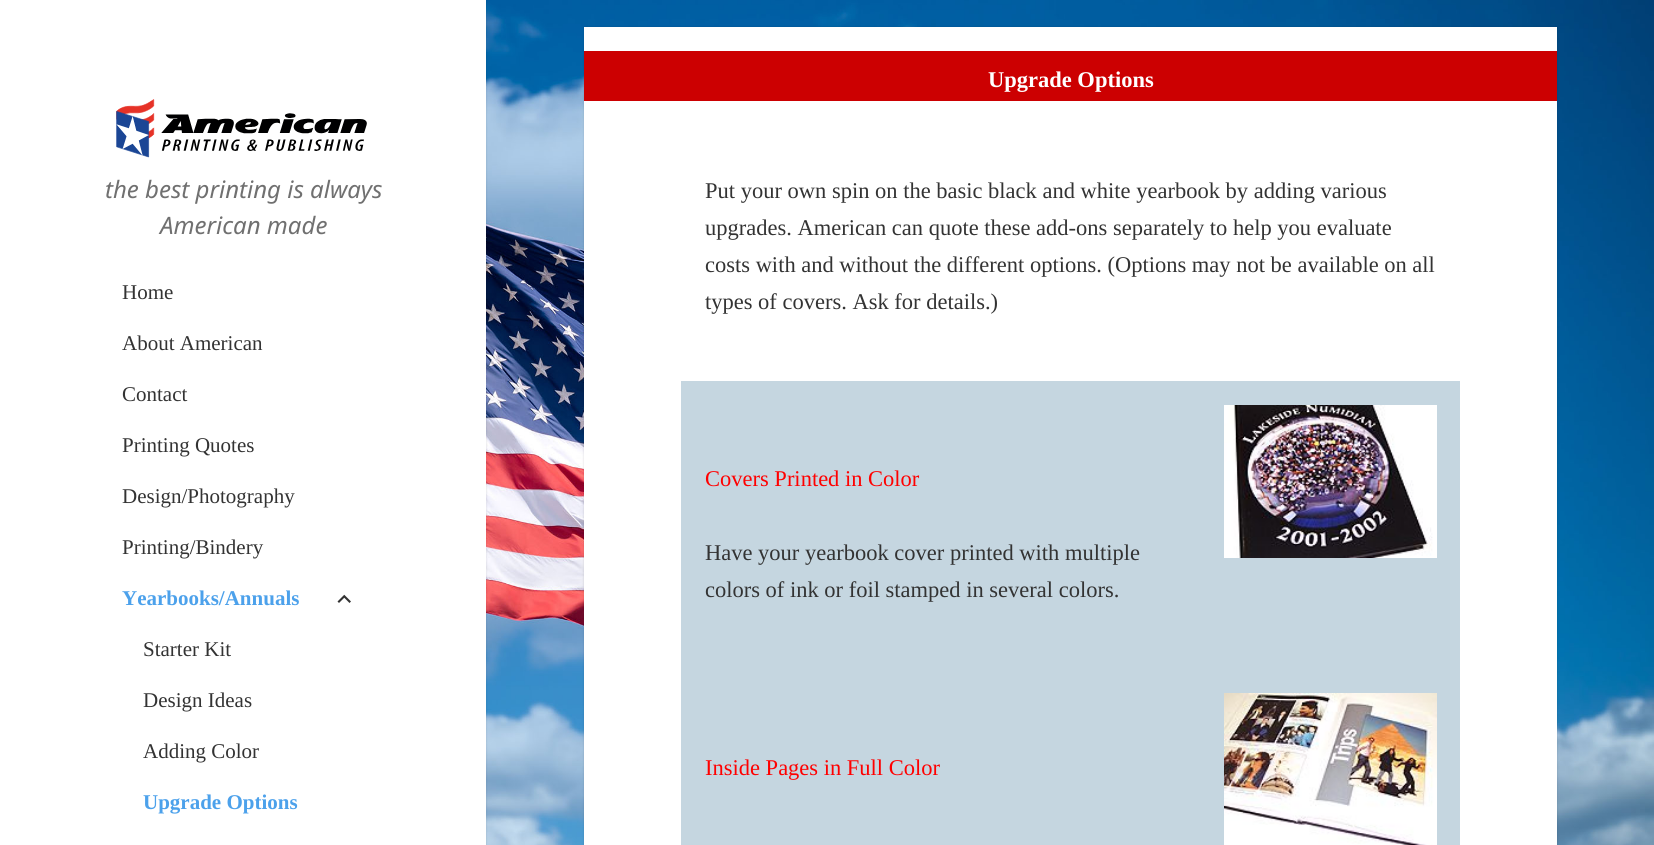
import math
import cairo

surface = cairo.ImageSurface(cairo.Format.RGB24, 1654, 845)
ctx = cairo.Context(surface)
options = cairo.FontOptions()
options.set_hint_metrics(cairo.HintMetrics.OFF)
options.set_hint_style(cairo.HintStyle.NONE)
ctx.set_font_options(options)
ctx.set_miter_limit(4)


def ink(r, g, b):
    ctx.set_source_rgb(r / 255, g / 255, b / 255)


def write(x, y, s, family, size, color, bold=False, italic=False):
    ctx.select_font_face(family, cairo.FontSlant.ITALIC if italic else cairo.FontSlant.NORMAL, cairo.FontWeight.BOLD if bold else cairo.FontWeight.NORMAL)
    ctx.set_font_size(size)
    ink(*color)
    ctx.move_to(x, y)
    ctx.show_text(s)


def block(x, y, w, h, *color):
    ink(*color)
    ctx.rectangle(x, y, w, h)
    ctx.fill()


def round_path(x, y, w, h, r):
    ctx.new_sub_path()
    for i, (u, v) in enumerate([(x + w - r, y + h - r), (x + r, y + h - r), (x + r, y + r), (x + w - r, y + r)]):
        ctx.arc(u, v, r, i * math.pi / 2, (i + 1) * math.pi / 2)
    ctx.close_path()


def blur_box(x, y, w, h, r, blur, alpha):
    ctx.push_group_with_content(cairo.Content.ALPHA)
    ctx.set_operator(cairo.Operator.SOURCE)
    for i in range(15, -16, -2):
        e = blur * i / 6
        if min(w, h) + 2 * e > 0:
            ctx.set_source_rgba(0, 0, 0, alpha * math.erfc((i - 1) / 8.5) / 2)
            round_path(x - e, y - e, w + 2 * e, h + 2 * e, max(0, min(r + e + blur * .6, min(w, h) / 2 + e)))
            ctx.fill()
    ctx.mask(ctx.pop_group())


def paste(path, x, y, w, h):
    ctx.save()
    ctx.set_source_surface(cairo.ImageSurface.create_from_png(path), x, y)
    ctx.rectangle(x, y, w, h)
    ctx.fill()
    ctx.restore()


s1 = dict(family="Noto Sans", size=24, color=(112, 112, 112), italic=True)
s2 = dict(family="Liberation Serif", size=21, color=(51, 51, 51))
s3 = dict(family="Liberation Serif", size=21, color=(76, 161, 235), bold=True)
s4 = dict(family="Liberation Serif", size=22.5, color=(255, 255, 255), bold=True)
s5 = dict(family="Liberation Serif", size=22.5, color=(51, 51, 51))
s6 = dict(family="Liberation Serif", size=22.5, color=(255, 0, 0))

ink(255, 255, 255)
ctx.paint()
paste("pic1.png", 486, 0, 1168, 845)
ink(0, 0, 0)
blur_box(0, 0, 486, 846, 0, 1, 0.15)
block(0, 0, 486, 845, 255, 255, 255)
paste("pic2.png", 116, 99, 251, 59)
write(105, 198, "the best printing is always", **s1)
write(160, 234, "American made", **s1)
write(122, 299, "Home", **s2)
write(122, 350, "About American", **s2)
write(122, 401, "Contact", **s2)
write(122, 452, "Printing Quotes", **s2)
write(122, 503, "Design/Photography", **s2)
write(122, 554, "Printing/Bindery", **s2)
write(122, 605, "Yearbooks/Annuals", **s3)
paste("pic3.png", 337, 594, 14, 9)
write(143, 656, "Starter Kit", **s2)
write(143, 707, "Design Ideas", **s2)
write(143, 758, "Adding Color", **s2)
write(143, 809, "Upgrade Options", **s3)
ink(0, 0, 0)
blur_box(584, 27, 973, 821, 0, 1, 0.15)
block(584, 27, 973, 818, 255, 255, 255)
block(584, 51, 973, 50, 204, 0, 1)
write(988, 87, "Upgrade Options", **s4)
write(705, 198, "Put your own spin on the basic black and white yearbook by adding various", **s5)
write(705, 235, "upgrades. American can quote these add-ons separately to help you evaluate", **s5)
write(705, 272, "costs with and without the different options. (Options may not be available on all", **s5)
write(705, 309, "types of covers. Ask for details.)", **s5)
block(681, 381, 779, 464, 197, 214, 224)
write(705, 486, "Covers Printed in Color", **s6)
write(705, 560, "Have your yearbook cover printed with multiple", **s5)
write(705, 597, "colors of ink or foil stamped in several colors.", **s5)
paste("pic4.png", 1224, 405, 213, 153)
write(705, 775, "Inside Pages in Full Color", **s6)
paste("pic5.png", 1224, 693, 213, 152)
surface.write_to_png("screenshot.png")
